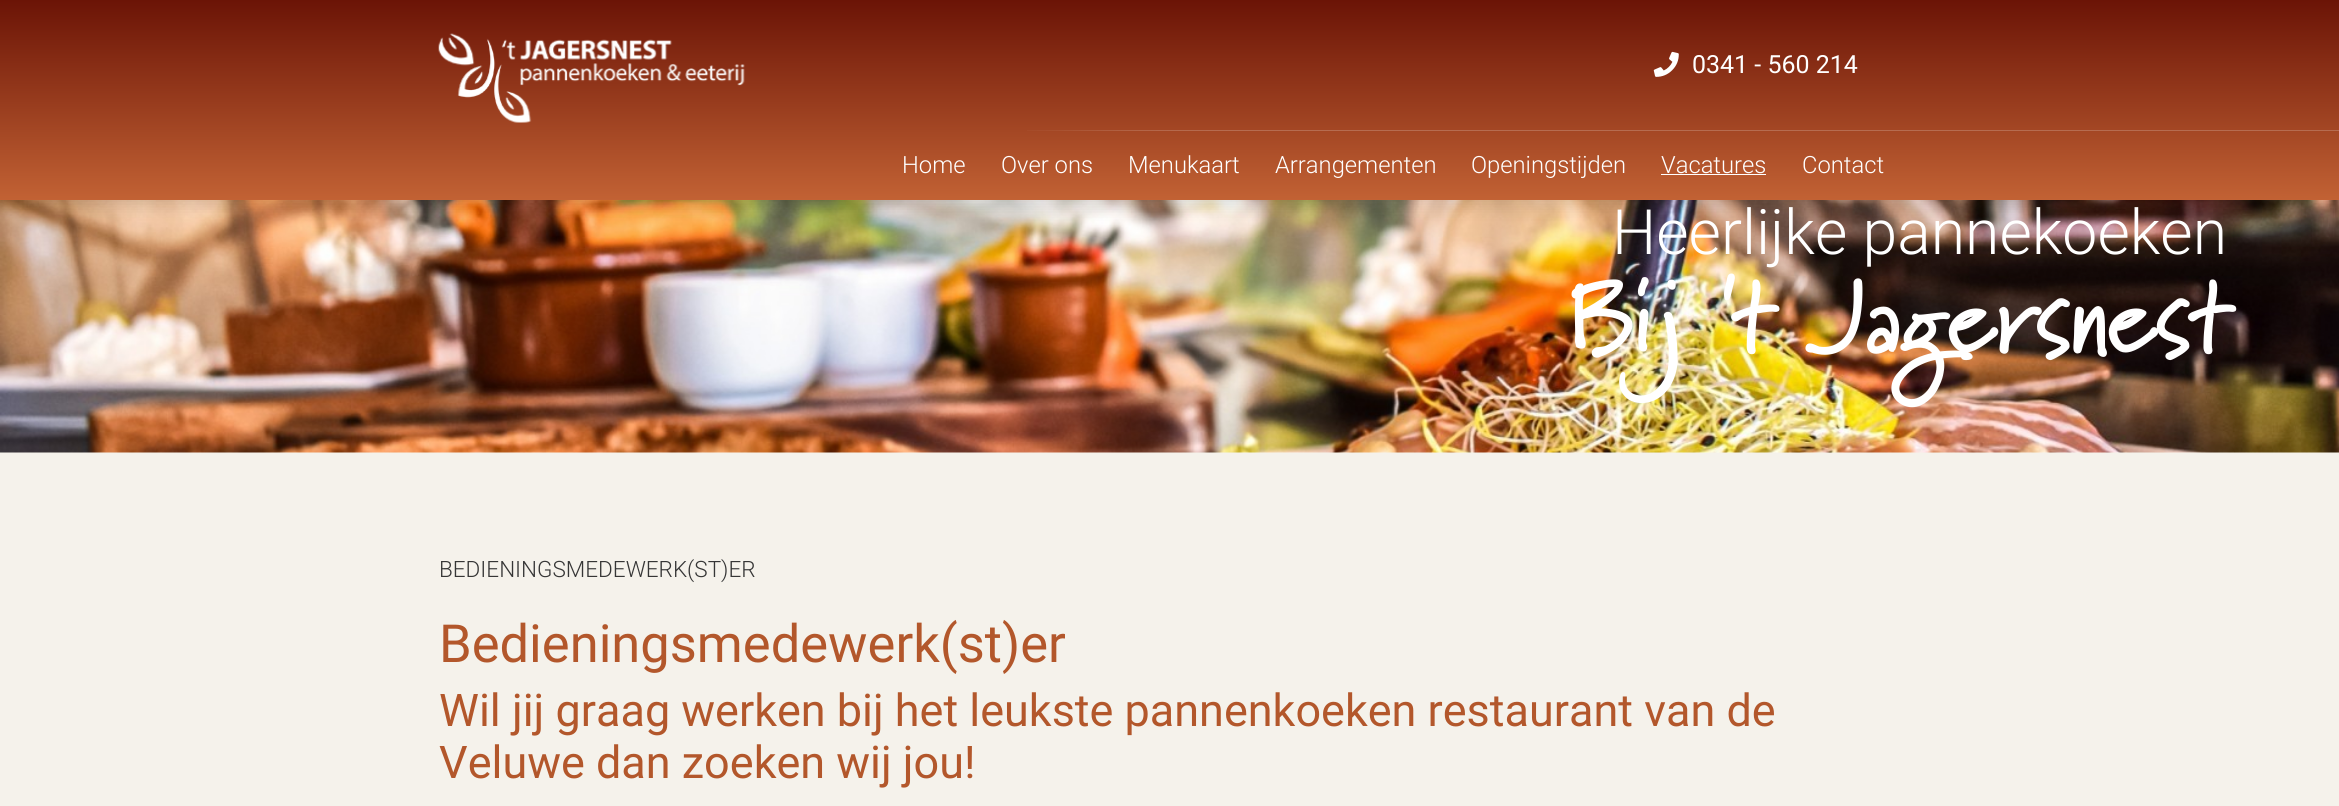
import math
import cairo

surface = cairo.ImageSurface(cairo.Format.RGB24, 2339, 806)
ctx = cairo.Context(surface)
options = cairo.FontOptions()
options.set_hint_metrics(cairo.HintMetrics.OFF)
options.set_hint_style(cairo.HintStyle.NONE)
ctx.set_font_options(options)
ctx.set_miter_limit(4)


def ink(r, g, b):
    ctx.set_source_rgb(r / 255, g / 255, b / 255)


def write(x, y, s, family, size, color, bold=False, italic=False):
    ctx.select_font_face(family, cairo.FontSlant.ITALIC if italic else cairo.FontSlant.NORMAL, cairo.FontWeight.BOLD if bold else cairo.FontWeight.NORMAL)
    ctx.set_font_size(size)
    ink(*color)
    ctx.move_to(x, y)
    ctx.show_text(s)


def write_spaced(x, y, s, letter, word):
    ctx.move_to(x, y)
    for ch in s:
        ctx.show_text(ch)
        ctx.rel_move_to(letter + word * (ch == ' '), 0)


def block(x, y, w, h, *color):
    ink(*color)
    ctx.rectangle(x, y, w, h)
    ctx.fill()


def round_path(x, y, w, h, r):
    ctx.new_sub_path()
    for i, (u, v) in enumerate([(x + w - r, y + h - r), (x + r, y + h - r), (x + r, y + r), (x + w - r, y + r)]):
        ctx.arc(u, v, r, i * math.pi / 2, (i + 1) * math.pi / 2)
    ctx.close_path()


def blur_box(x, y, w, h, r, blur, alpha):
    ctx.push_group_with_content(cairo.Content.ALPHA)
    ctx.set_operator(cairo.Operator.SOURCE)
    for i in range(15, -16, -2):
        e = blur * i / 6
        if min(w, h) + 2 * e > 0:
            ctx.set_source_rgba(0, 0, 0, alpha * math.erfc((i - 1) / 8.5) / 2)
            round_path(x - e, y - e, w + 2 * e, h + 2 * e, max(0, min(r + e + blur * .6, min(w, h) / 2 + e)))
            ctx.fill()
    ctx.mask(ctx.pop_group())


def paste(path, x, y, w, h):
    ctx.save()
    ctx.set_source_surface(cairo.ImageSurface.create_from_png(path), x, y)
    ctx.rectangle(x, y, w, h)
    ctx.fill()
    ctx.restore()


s1 = dict(family="Roboto", size=25, color=(255, 255, 255))
s2 = dict(family="Roboto Light", size=23.75, color=(255, 255, 255))
s3 = dict(family="Roboto Light", size=62.5, color=(255, 255, 255))
s4 = dict(family="Roboto Light", size=22.5, color=(54, 54, 54))
s5 = dict(family="Roboto", size=52.5, color=(179, 87, 43))
s6 = dict(family="Roboto", size=45, color=(179, 87, 43))

ink(245, 242, 235)
ctx.paint()
paste("pic4.png", 0, 200, 2339, 253)
ink(0, 0, 0)
blur_box(0, 6, 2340, 200, 0, 8, 0.14)
gradient = cairo.LinearGradient(1170, 200, 1170, 0)
gradient.add_color_stop_rgba(0, 0.761, 0.384, 0.204, 1)
gradient.add_color_stop_rgba(1, 0.42, 0.078, 0.024, 1)
ctx.set_source(gradient)
ctx.rectangle(0, 0, 2339, 200)
ctx.fill()
paste("pic1.png", 1653, 51, 26, 26)
write(1692, 73, "0341 - 560 214", **s1)
paste("pic2.png", 1027, 130, 1312, 1)
paste("pic3.png", 438, 33, 307, 90)
write(902, 173, "Home", **s2)
write(1001, 173, "Over ons", **s2)
write(1128, 173, "Menukaart", **s2)
write(1275, 173, "Arrangementen", **s2)
write(1471, 173, "Openingstijden", **s2)
write(1661, 173, "Vacatures", **s2)
block(1661, 174, 105, 1, 255, 255, 255)
write(1802, 173, "Contact", **s2)
write(1612, 254, "Heerlijke pannekoeken", **s3)
ctx.select_font_face("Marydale", cairo.FontSlant.NORMAL, cairo.FontWeight.BOLD)
ctx.set_font_size(98.75)
write_spaced(1568, 352, "Bij 't Jagersnest", 0, -1)
write(439, 577, "BEDIENINGSMEDEWERK(ST)ER", **s4)
write(439, 662, "Bedieningsmedewerk(st)er", **s5)
write(439, 726, "Wil jij graag werken bij het leukste pannenkoeken restaurant van de", **s6)
write(439, 778, "Veluwe dan zoeken wij jou!", **s6)
surface.write_to_png("screenshot.png")
